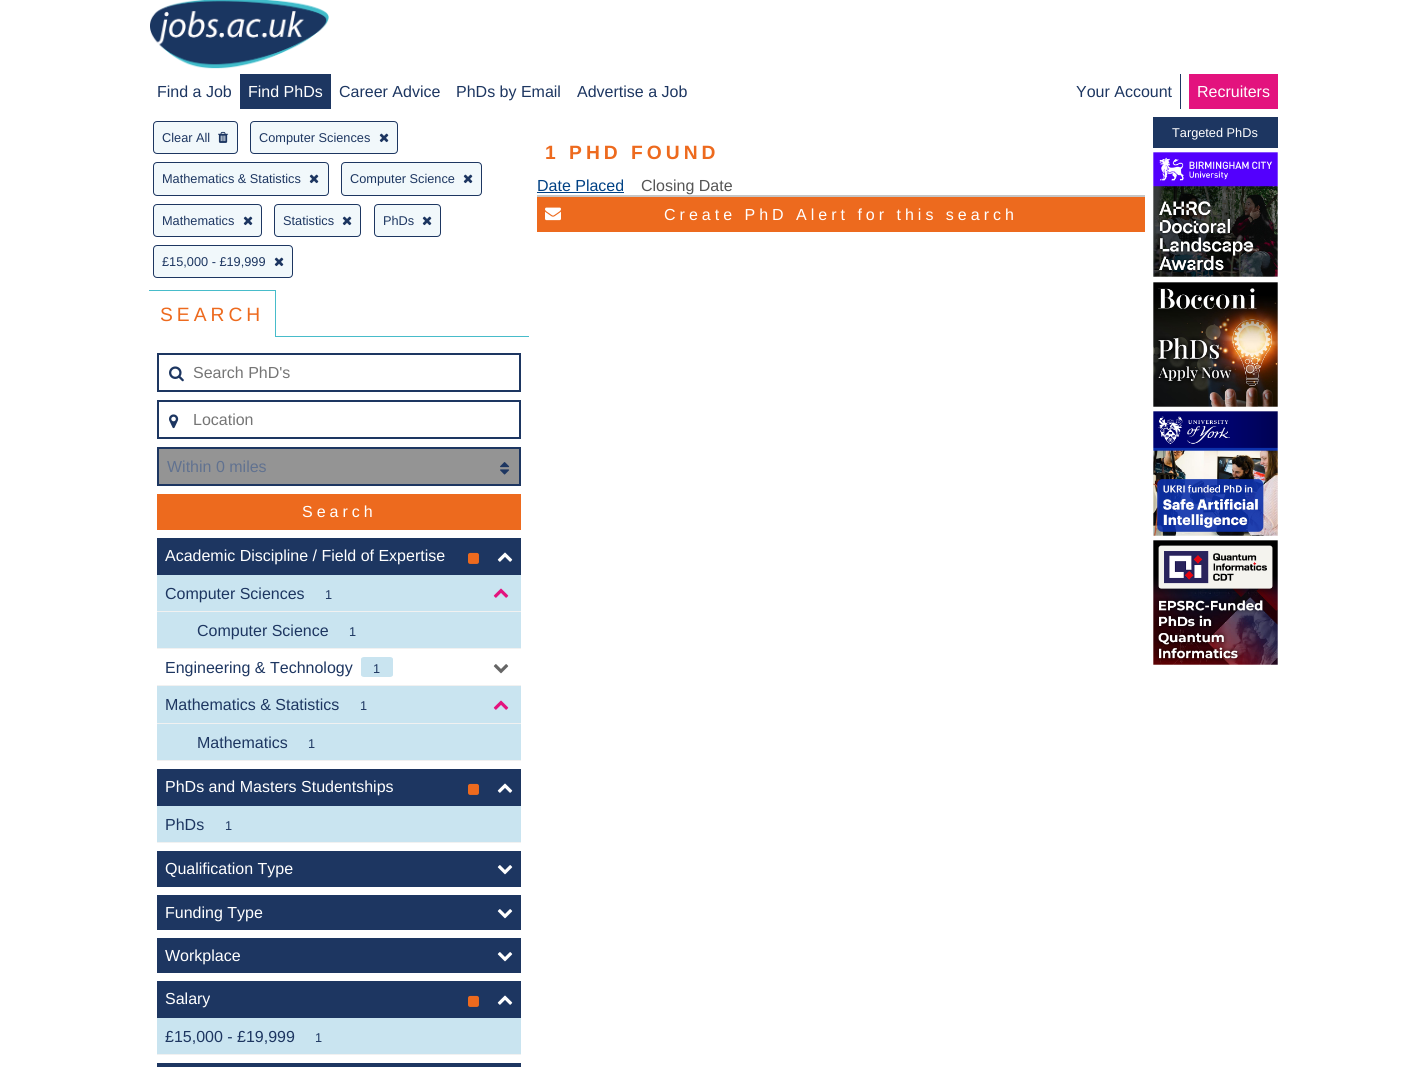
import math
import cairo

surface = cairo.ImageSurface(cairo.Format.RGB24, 1427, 1067)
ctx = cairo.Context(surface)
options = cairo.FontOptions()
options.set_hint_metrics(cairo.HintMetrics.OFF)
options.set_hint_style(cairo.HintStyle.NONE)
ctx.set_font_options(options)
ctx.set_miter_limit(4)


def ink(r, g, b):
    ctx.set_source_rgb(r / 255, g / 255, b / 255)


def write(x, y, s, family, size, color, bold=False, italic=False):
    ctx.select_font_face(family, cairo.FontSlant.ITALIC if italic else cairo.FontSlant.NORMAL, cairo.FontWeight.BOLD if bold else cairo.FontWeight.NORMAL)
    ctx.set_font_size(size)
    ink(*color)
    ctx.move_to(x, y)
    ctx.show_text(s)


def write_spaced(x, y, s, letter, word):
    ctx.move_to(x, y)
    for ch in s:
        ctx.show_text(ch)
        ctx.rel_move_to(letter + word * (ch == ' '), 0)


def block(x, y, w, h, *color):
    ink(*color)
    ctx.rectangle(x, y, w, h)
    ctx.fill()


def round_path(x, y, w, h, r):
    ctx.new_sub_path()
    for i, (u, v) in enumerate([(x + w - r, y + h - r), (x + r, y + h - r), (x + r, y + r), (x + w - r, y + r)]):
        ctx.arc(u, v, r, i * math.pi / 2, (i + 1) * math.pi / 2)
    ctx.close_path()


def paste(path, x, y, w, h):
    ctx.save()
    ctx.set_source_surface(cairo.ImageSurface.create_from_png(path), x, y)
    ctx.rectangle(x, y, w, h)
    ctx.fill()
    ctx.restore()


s1 = dict(family="Liberation Sans", size=16, color=(29, 54, 97))
s2 = dict(family="Liberation Sans", size=16, color=(255, 255, 255))
s3 = dict(family="Liberation Sans", size=12.75, color=(29, 54, 97))
s4 = dict(family="Liberation Sans", size=16, color=(117, 117, 117))
s5 = dict(family="Liberation Sans", size=16, color=(97, 114, 144))
s6 = dict(family="Liberation Sans", size=16, color=(0, 65, 132))
s7 = dict(family="Liberation Sans", size=16, color=(85, 85, 85))
s8 = dict(family="Liberation Sans", size=12.75, color=(255, 255, 255))

ink(255, 255, 255)
ctx.paint()
paste("pic1.png", 150, 0, 179, 69)
write(157, 97, "Find a Job", **s1)
block(240, 74, 91, 35, 29, 54, 97)
write(248, 97, "Find PhDs", **s2)
write(339, 97, "Career Advice", **s1)
write(456, 97, "PhDs by Email", **s1)
write(577, 97, "Advertise a Job", **s1)
block(1180, 74, 1, 35, 29, 54, 97)
write(1076, 97, "Your Account", **s1)
block(1189, 74, 89, 35, 227, 19, 126)
write(1197, 97, "Recruiters", **s2)
ink(241, 248, 251)
round_path(153.5, 121.5, 84, 32, 3.5)
ctx.fill_preserve()
ink(29, 54, 97)
ctx.set_line_width(1)
ctx.stroke()
write(162, 142, "Clear All", **s3)
paste("pic2.png", 218, 131, 11, 12)
ink(241, 248, 251)
round_path(250.5, 121.5, 147, 32, 3.5)
ctx.fill_preserve()
ink(29, 54, 97)
ctx.stroke()
write(259, 142, "Computer Sciences", **s3)
paste("pic3.png", 379, 133, 10, 10)
ink(241, 248, 251)
round_path(153.5, 162.5, 175, 33, 3.5)
ctx.fill_preserve()
ink(29, 54, 97)
ctx.stroke()
write(162, 183, "Mathematics & Statistics", **s3)
paste("pic3.png", 309, 174, 10, 10)
ink(241, 248, 251)
round_path(341.5, 162.5, 140, 33, 3.5)
ctx.fill_preserve()
ink(29, 54, 97)
ctx.stroke()
write(350, 183, "Computer Science", **s3)
paste("pic3.png", 463, 174, 10, 10)
ink(241, 248, 251)
round_path(153.5, 204.5, 108, 32, 3.5)
ctx.fill_preserve()
ink(29, 54, 97)
ctx.stroke()
write(162, 225, "Mathematics", **s3)
paste("pic3.png", 243, 216, 10, 10)
ink(241, 248, 251)
round_path(274.5, 204.5, 86, 32, 3.5)
ctx.fill_preserve()
ink(29, 54, 97)
ctx.stroke()
write(283, 225, "Statistics", **s3)
paste("pic3.png", 342, 216, 10, 10)
ink(241, 248, 251)
round_path(374.5, 204.5, 66, 32, 3.5)
ctx.fill_preserve()
ink(29, 54, 97)
ctx.stroke()
write(383, 225, "PhDs", **s3)
paste("pic3.png", 422, 216, 10, 10)
ink(241, 248, 251)
round_path(153.5, 245.5, 139, 32, 3.5)
ctx.fill_preserve()
ink(29, 54, 97)
ctx.stroke()
write(162, 266, "£15,000 - £19,999", **s3)
paste("pic3.png", 274, 257, 10, 10)
block(276, 336, 253, 1, 71, 188, 202)
block(149, 290, 127, 1, 71, 188, 202)
block(275, 290, 1, 47, 71, 188, 202)
ctx.set_font_size(19.25)
ink(237, 106, 30)
write_spaced(160, 321, "SEARCH", 4, 0)
ctx.rectangle(158, 354, 362, 37)
ink(29, 54, 97)
ctx.set_line_width(2)
ctx.stroke()
paste("pic4.png", 169, 366, 15, 16)
write(193, 378, "Search PhD's", **s4)
ctx.rectangle(158, 401, 362, 37)
ink(29, 54, 97)
ctx.stroke()
paste("pic5.png", 169, 414, 10, 15)
write(193, 425, "Location", **s4)
ctx.rectangle(158, 448, 362, 37)
ink(29, 54, 97)
ctx.stroke()
block(159, 449, 360, 35, 148, 148, 148)
write(167, 472, "Within 0 miles", **s5)
paste("pic6.png", 500, 462, 10, 13)
block(157, 494, 364, 36, 237, 106, 30)
ink(255, 255, 255)
write_spaced(302, 517, "Search", 4, 0)
block(157, 538, 364, 37, 29, 54, 97)
write(165, 561, "Academic Discipline / Field of Expertise", **s2)
paste("pic7.png", 468, 552, 11, 12)
paste("pic8.png", 497, 552, 16, 10)
block(157, 575, 364, 36, 201, 228, 240)
block(157, 611, 364, 1, 241, 241, 241)
write(165, 599, "Computer Sciences", **s1)
write(325, 599, "1", **s3)
paste("pic9.png", 493, 588, 16, 10)
block(157, 612, 364, 36, 201, 228, 240)
block(157, 648, 364, 1, 241, 241, 241)
write(197, 636, "Computer Science", **s1)
write(349, 636, "1", **s3)
block(157, 685, 364, 1, 241, 241, 241)
write(165, 673, "Engineering & Technology", **s1)
ink(201, 228, 240)
ctx.new_path()
ctx.move_to(364, 657)
ctx.line_to(390, 657)
ctx.curve_to(391.5, 657, 393, 658, 393, 659)
ctx.line_to(393, 675)
ctx.curve_to(393, 676, 391.5, 677, 390, 677)
ctx.line_to(364, 677)
ctx.curve_to(362.5, 677, 361, 676, 361, 675)
ctx.line_to(361, 659)
ctx.curve_to(361, 658, 362.5, 657, 364, 657)
ctx.close_path()
ctx.fill()
write(373, 673, "1", **s3)
paste("pic10.png", 493, 664, 16, 10)
block(157, 686, 364, 37, 201, 228, 240)
block(157, 723, 364, 1, 241, 241, 241)
write(165, 710, "Mathematics & Statistics", **s1)
write(360, 710, "1", **s3)
paste("pic9.png", 493, 700, 16, 10)
block(157, 724, 364, 36, 201, 228, 240)
block(157, 760, 364, 1, 241, 241, 241)
write(197, 748, "Mathematics", **s1)
write(308, 748, "1", **s3)
block(157, 769, 364, 37, 29, 54, 97)
write(165, 792, "PhDs and Masters Studentships", **s2)
paste("pic7.png", 468, 783, 11, 12)
paste("pic8.png", 497, 783, 16, 10)
block(157, 806, 364, 36, 201, 228, 240)
block(157, 842, 364, 1, 241, 241, 241)
write(165, 830, "PhDs", **s1)
write(225, 830, "1", **s3)
block(157, 851, 364, 36, 29, 54, 97)
write(165, 874, "Qualification Type", **s2)
paste("pic11.png", 497, 865, 16, 10)
block(157, 895, 364, 35, 29, 54, 97)
write(165, 918, "Funding Type", **s2)
paste("pic11.png", 497, 909, 16, 10)
block(157, 938, 364, 35, 29, 54, 97)
write(165, 961, "Workplace", **s2)
paste("pic11.png", 497, 952, 16, 10)
block(157, 981, 364, 37, 29, 54, 97)
write(165, 1004, "Salary", **s2)
paste("pic7.png", 468, 995, 11, 12)
paste("pic8.png", 497, 995, 16, 10)
block(157, 1018, 364, 36, 201, 228, 240)
block(157, 1054, 364, 1, 241, 241, 241)
write(165, 1042, "£15,000 - £19,999", **s1)
write(315, 1042, "1", **s3)
block(157, 1063, 364, 4, 29, 54, 97)
ctx.select_font_face("Liberation Sans", cairo.FontSlant.NORMAL, cairo.FontWeight.BOLD)
ctx.set_font_size(19.25)
ink(237, 106, 30)
write_spaced(545, 159, "1 PHD FOUND", 4, 0)
block(537, 195, 608, 2, 198, 198, 198)
write(537, 191, "Date Placed", **s6)
block(537, 192, 87, 1, 0, 65, 132)
write(641, 191, "Closing Date", **s7)
block(537, 197, 608, 35, 237, 106, 30)
paste("pic12.png", 545, 207, 16, 14)
ink(255, 255, 255)
write_spaced(664, 220, "Create PhD Alert for this search", 4, 0)
block(1153, 117, 125, 31, 29, 54, 97)
write(1172, 137, "Targeted PhDs", **s8)
paste("pic13.png", 1153, 152, 125, 125)
paste("pic14.png", 1153, 282, 125, 125)
paste("pic15.png", 1153, 411, 125, 125)
paste("pic16.png", 1153, 540, 125, 125)
surface.write_to_png("screenshot.png")
